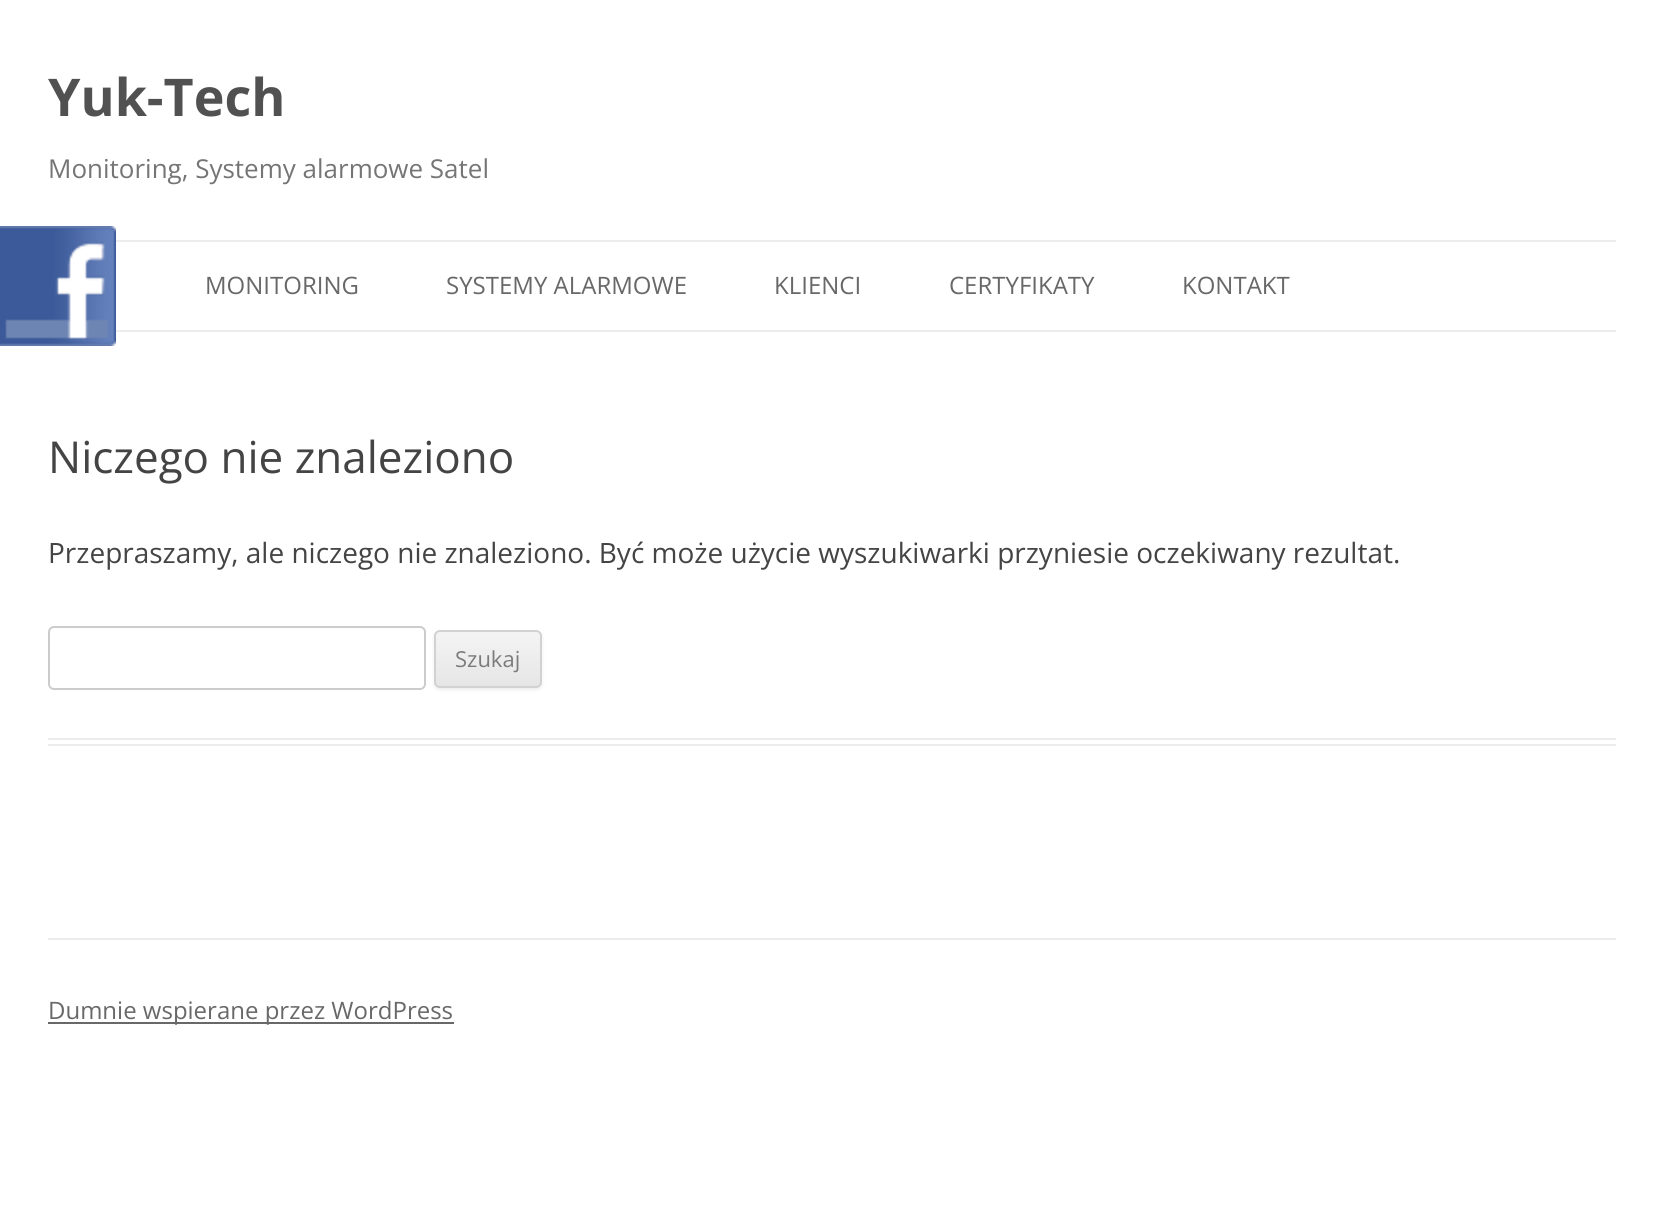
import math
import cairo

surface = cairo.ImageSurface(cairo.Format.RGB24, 1663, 1212)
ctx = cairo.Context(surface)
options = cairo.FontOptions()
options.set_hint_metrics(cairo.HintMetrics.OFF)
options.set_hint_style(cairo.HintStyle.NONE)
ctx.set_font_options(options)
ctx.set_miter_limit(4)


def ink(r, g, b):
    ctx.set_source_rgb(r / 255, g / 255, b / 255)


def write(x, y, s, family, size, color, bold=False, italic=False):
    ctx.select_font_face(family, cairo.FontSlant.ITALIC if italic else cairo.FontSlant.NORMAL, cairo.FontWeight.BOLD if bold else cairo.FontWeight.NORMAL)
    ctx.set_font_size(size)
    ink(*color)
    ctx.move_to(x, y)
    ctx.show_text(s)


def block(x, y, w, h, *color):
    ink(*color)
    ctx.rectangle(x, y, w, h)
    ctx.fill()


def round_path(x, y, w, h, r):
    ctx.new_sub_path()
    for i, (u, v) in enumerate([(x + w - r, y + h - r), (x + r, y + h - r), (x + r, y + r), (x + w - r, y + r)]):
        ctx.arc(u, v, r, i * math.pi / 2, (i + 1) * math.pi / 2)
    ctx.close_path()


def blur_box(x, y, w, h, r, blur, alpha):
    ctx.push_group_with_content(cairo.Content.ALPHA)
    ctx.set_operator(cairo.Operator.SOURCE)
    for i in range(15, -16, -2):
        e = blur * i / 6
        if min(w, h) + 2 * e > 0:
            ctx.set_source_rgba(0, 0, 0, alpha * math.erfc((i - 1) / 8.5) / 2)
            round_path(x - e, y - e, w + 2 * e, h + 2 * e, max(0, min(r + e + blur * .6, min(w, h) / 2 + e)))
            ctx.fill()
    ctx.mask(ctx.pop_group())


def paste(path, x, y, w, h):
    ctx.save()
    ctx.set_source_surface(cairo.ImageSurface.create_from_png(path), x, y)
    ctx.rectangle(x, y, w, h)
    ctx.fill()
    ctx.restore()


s1 = dict(family="Open Sans", size=52, color=(81, 81, 81), bold=True)
s2 = dict(family="Open Sans", size=26, color=(117, 117, 117))
s3 = dict(family="Open Sans", size=24, color=(104, 104, 104))
s4 = dict(family="Open Sans", size=44, color=(68, 68, 68))
s5 = dict(family="Open Sans", size=28, color=(68, 68, 68))
s6 = dict(family="Open Sans", size=22, color=(124, 124, 124))

ink(255, 255, 255)
ctx.paint()
write(48, 116, "Yuk-Tech", **s1)
write(48, 178, "Monitoring, Systemy alarmowe Satel", **s2)
block(116, 240, 1500, 2, 237, 237, 237)
block(116, 330, 1500, 2, 237, 237, 237)
write(205, 294, "MONITORING", **s3)
write(446, 294, "SYSTEMY ALARMOWE", **s3)
write(774, 294, "KLIENCI", **s3)
write(949, 294, "CERTYFIKATY", **s3)
write(1182, 294, "KONTAKT", **s3)
block(48, 738, 1568, 2, 237, 237, 237)
block(48, 744, 1568, 2, 237, 237, 237)
write(48, 473, "Niczego nie znaleziono", **s4)
write(48, 563, "Przepraszamy, ale niczego nie znaleziono. Być może użycie wyszukiwarki przyniesie oczekiwany rezultat.", **s5)
round_path(49, 627, 376, 62, 5)
ink(204, 204, 204)
ctx.stroke()
ink(64, 64, 64)
blur_box(434, 632, 108, 58, 6, 2, 0.1)
ctx.save()
round_path(434, 630, 108, 58, 6)
ctx.clip()
gradient = cairo.LinearGradient(488, 632, 488, 686)
gradient.add_color_stop_rgba(0, 0.957, 0.957, 0.957, 1)
gradient.add_color_stop_rgba(1, 0.902, 0.902, 0.902, 1)
ctx.set_source(gradient)
ctx.rectangle(434, 632, 108, 54)
ctx.fill()
ctx.restore()
round_path(435, 631, 106, 56, 5)
ink(210, 210, 210)
ctx.stroke()
write(455, 667, "Szukaj", **s6)
block(48, 938, 1568, 2, 237, 237, 237)
block(48, 1022, 406, 2, 104, 104, 104)
write(48, 1019, "Dumnie wspierane przez WordPress", **s3)
paste("pic1.png", 0, 226, 116, 120)
surface.write_to_png("screenshot.png")
